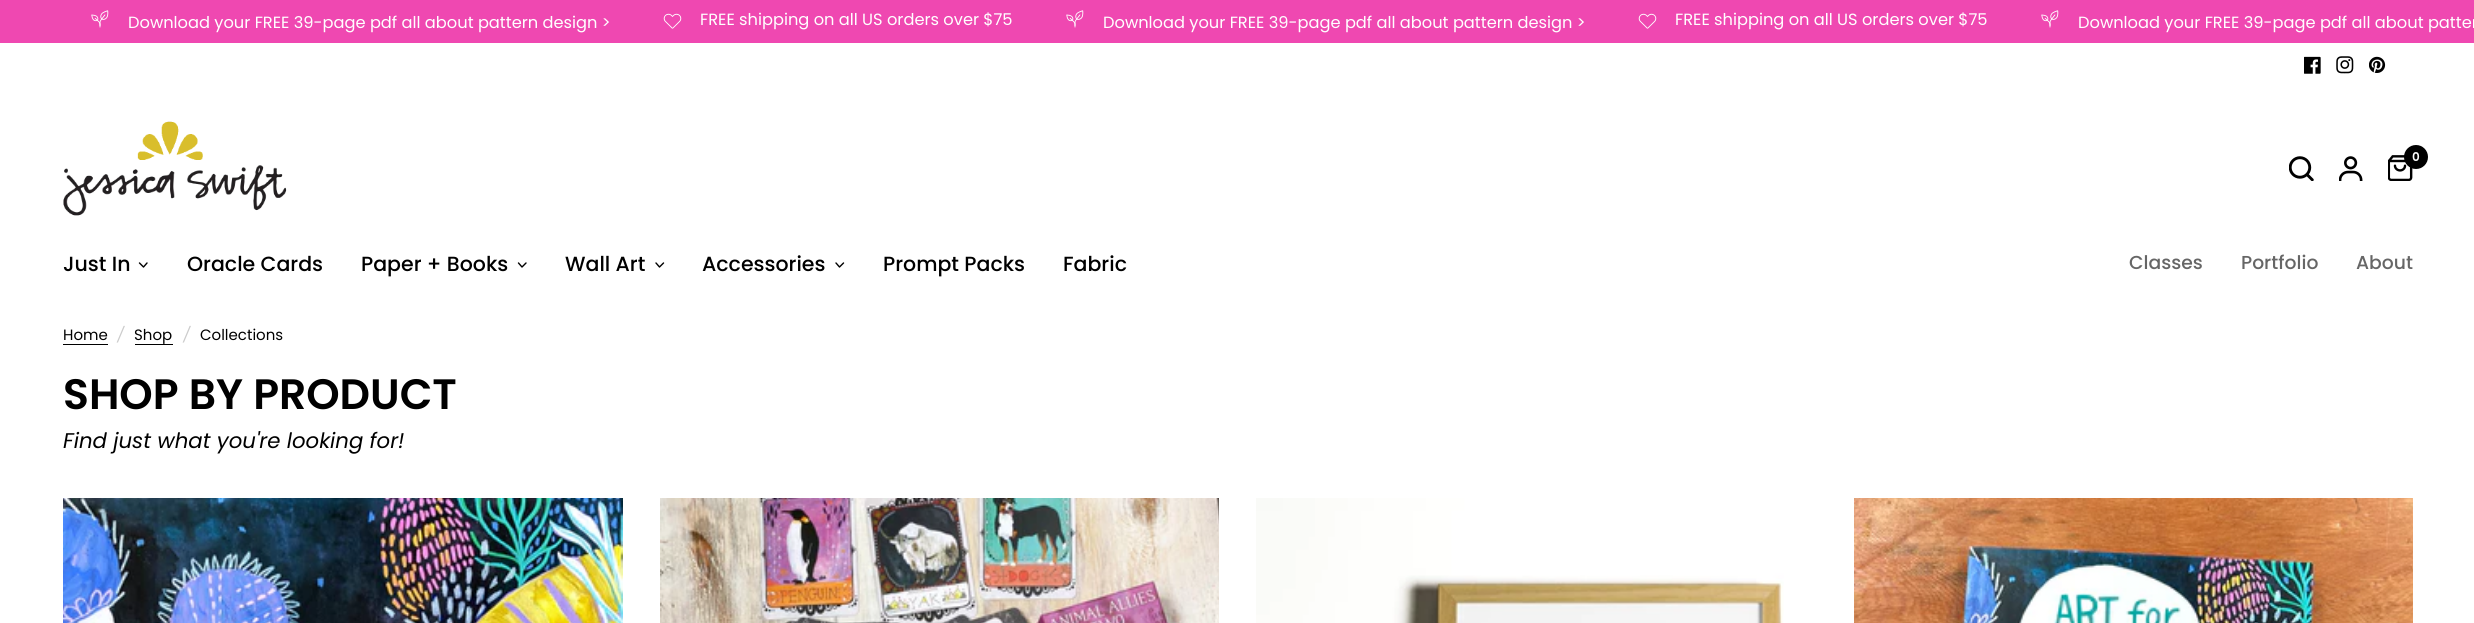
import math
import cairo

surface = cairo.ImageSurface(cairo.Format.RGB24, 2474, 623)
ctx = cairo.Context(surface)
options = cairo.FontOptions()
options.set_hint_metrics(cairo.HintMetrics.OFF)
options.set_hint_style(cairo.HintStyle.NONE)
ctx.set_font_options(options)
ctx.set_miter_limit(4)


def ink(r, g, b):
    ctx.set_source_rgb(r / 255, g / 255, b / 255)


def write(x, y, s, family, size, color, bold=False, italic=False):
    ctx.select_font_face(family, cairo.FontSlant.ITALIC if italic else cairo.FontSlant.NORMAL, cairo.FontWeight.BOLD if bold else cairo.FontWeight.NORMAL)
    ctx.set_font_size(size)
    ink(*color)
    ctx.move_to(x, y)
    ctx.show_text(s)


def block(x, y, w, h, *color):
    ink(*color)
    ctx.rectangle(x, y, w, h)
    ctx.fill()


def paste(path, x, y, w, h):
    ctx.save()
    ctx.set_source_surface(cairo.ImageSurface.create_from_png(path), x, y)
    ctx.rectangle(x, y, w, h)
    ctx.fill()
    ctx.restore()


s1 = dict(family="Poppins", size=16.25, color=(255, 255, 255))
s2 = dict(family="Poppins SemiBold", size=12, color=(255, 255, 255))
s3 = dict(family="Poppins Medium", size=20.5, color=(0, 0, 0))
s4 = dict(family="Poppins Medium", size=18.75, color=(102, 102, 102))
s5 = dict(family="Poppins", size=15, color=(0, 0, 0))
s6 = dict(family="Poppins", size=15, color=(204, 204, 204), italic=True)
s7 = dict(family="Poppins SemiBold", size=42.5, color=(0, 0, 0))
s8 = dict(family="Poppins", size=21.25, color=(0, 0, 0), italic=True)

ink(255, 255, 255)
ctx.paint()
block(0, 0, 2474, 43, 239, 72, 177)
paste("pic1.png", 91, 10, 18, 18)
write(128, 28, "Download your FREE 39-page pdf all about pattern design >", **s1)
paste("pic2.png", 663, 13, 19, 16)
write(700, 25, "FREE shipping on all US orders over $75", **s1)
paste("pic1.png", 1066, 10, 18, 18)
write(1103, 28, "Download your FREE 39-page pdf all about pattern design >", **s1)
paste("pic2.png", 1638, 13, 19, 16)
write(1675, 25, "FREE shipping on all US orders over $75", **s1)
paste("pic1.png", 2041, 10, 18, 18)
write(2078, 28, "Download your FREE 39-page pdf all about patter", **s1)
paste("pic3.png", 2304, 56, 17, 18)
paste("pic4.png", 2336, 56, 18, 18)
paste("pic5.png", 2369, 56, 17, 17)
paste("pic6.png", 63, 121, 224, 95)
paste("pic7.png", 2289, 156, 25, 25)
paste("pic8.png", 2339, 156, 24, 25)
paste("pic9.png", 2388, 155, 25, 26)
ink(0, 0, 0)
ctx.arc(2416, 157, 12, 0, 2 * math.pi)
ctx.fill()
write(2412, 161, "0", **s2)
write(63, 271, "Just In", **s3)
ctx.new_path()
ctx.move_to(147, 263)
ctx.line_to(143.5, 267)
ctx.line_to(139.5, 263)
ctx.set_line_width(1.4)
ctx.set_line_cap(cairo.LineCap.ROUND)
ctx.set_line_join(cairo.LineJoin.ROUND)
ctx.stroke()
write(187, 271, "Oracle Cards", **s3)
write(361, 271, "Paper + Books", **s3)
ctx.new_path()
ctx.move_to(526, 263)
ctx.line_to(522, 267)
ctx.line_to(518.5, 263)
ctx.stroke()
write(565, 271, "Wall Art", **s3)
ctx.new_path()
ctx.move_to(663.5, 263)
ctx.line_to(659.5, 267)
ctx.line_to(656, 263)
ctx.stroke()
write(702, 271, "Accessories", **s3)
ctx.new_path()
ctx.move_to(843.5, 263)
ctx.line_to(839.5, 267)
ctx.line_to(836, 263)
ctx.stroke()
write(883, 271, "Prompt Packs", **s3)
write(1063, 271, "Fabric", **s3)
write(2129, 269, "Classes", **s4)
write(2241, 269, "Portfolio", **s4)
write(2356, 269, "About", **s4)
write(63, 340, "Home", **s5)
block(63, 344, 45, 1, 0, 0, 0)
write(117, 340, "/", **s6)
write(134, 340, "Shop", **s5)
block(135, 344, 38, 1, 0, 0, 0)
write(183, 340, "/", **s6)
write(200, 340, "Collections", **s5)
write(63, 409, "SHOP BY PRODUCT", **s7)
write(63, 448, "Find just what you're looking for!", **s8)
paste("pic10.png", 63, 498, 560, 125)
paste("pic11.png", 660, 498, 559, 125)
paste("pic12.png", 1256, 498, 528, 125)
paste("pic13.png", 1854, 498, 559, 125)
surface.write_to_png("screenshot.png")
